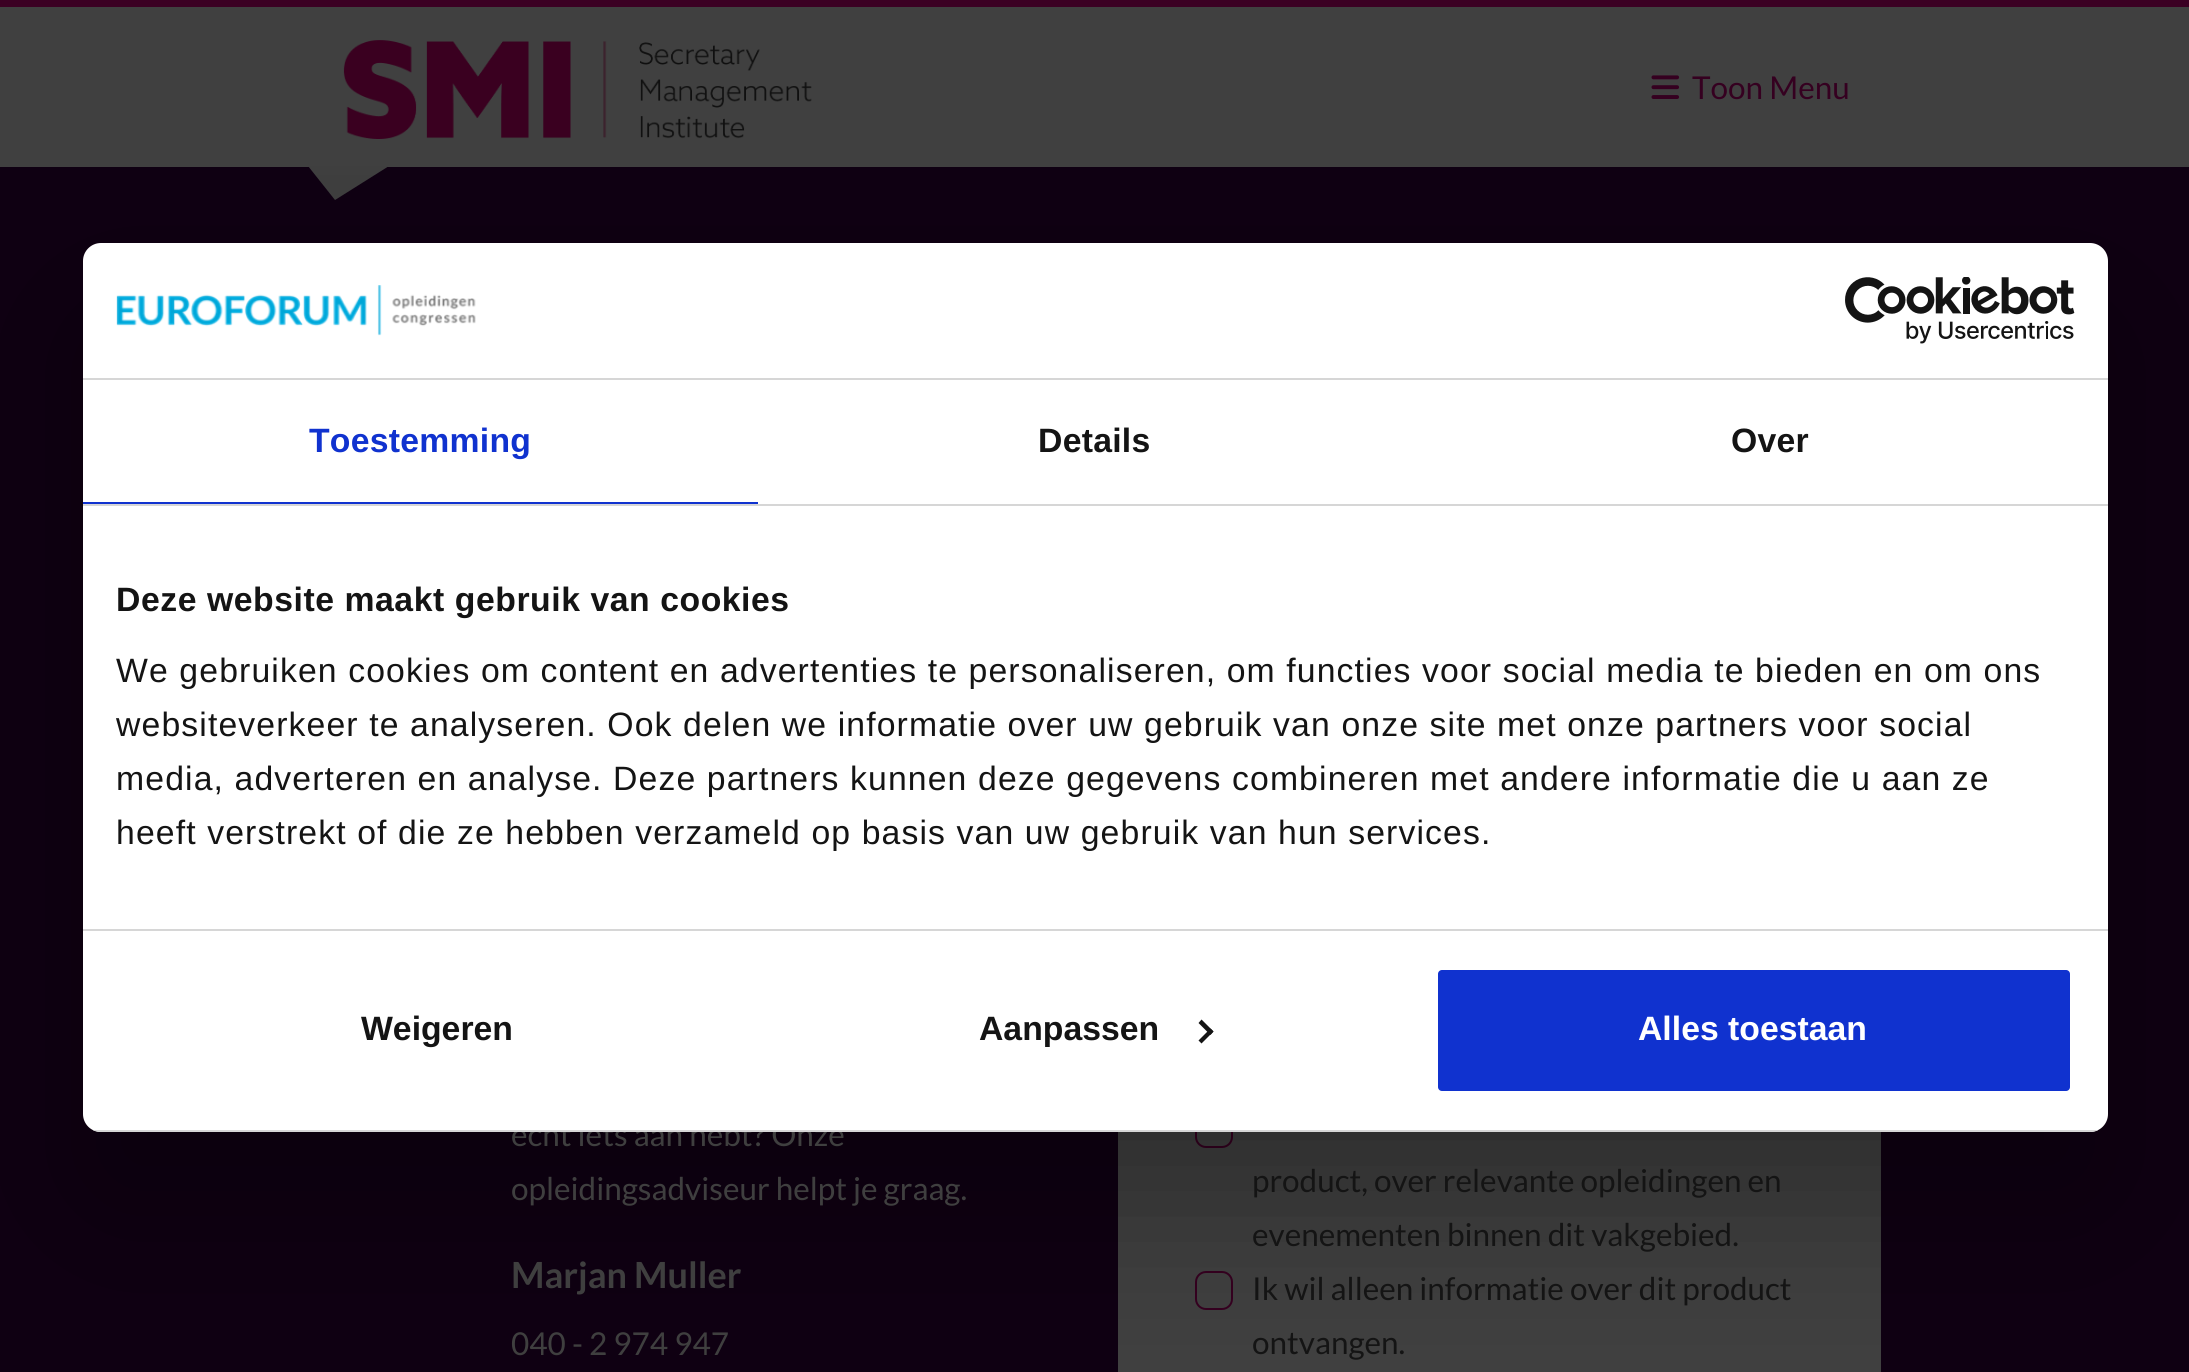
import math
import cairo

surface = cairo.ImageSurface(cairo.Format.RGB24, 2189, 1372)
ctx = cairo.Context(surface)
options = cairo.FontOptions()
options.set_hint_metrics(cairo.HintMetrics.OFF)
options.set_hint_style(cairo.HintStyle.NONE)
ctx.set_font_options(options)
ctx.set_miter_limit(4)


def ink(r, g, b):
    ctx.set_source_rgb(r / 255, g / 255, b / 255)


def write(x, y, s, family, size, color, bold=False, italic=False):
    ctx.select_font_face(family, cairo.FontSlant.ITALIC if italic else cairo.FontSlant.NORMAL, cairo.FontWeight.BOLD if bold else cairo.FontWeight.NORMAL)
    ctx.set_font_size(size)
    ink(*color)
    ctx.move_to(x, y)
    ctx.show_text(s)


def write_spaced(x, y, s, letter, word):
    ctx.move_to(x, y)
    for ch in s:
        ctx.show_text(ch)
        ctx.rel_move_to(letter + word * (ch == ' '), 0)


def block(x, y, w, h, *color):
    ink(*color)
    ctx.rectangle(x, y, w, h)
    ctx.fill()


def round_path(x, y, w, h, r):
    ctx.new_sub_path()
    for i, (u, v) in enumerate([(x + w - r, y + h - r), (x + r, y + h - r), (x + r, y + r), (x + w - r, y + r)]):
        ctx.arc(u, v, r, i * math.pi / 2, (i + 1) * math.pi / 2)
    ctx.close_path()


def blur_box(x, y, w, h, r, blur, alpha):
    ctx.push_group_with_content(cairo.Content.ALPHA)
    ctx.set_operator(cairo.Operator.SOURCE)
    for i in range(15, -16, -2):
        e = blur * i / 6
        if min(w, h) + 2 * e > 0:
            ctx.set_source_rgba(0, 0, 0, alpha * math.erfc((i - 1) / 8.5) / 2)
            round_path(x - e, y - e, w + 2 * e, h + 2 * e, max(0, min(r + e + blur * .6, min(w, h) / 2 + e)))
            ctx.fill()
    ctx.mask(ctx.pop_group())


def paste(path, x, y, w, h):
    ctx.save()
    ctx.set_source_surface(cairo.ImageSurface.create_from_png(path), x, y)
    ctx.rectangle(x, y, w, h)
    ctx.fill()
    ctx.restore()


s1 = dict(family="Lato", size=31.5, color=(53, 0, 32))
s2 = dict(family="Lato", size=31.5, color=(63, 63, 63))
s3 = dict(family="Liberation Sans", size=33.75, color=(20, 20, 20), bold=True)
s4 = dict(family="Liberation Sans", size=33.75, color=(255, 255, 255), bold=True)
s5 = dict(family="Lato", size=36, color=(63, 63, 63), bold=True)
s6 = dict(family="Lato", size=31.5, color=(20, 20, 20))

ink(64, 64, 64)
ctx.paint()
block(0, 0, 2189, 7, 59, 0, 35)
paste("pic1.png", 343, 40, 469, 99)
paste("pic2.png", 1651, 75, 29, 24)
write(1692, 99, "Toon Menu", **s1)
block(0, 167, 2189, 1205, 15, 0, 18)
ink(63, 63, 63)
ctx.new_path()
ctx.move_to(308, 166)
ctx.line_to(389, 166)
ctx.line_to(335, 200)
ctx.close_path()
ctx.fill()
block(1118, 1132, 763, 240, 64, 64, 64)
round_path(1196, 1110, 36, 37, 10)
ctx.fill_preserve()
ink(53, 0, 32)
ctx.stroke()
round_path(1196, 1272, 36, 37, 10)
ctx.stroke()
ink(0, 0, 0)
blur_box(83, 315, 2025, 889, 18, 76.5, 0.3)
write(511, 1146, "écht iets aan hebt? Onze", **s2)
ink(255, 255, 255)
round_path(83, 243, 2025, 889, 18)
ctx.fill()
block(83, 378, 2025, 2, 214, 214, 214)
paste("pic3.png", 116, 285, 360, 51)
paste("pic4.png", 1845, 277, 230, 67)
block(83, 504, 2025, 2, 214, 214, 214)
block(83, 502, 675, 2, 16, 50, 207)
ctx.select_font_face("Liberation Sans", cairo.FontSlant.NORMAL, cairo.FontWeight.BOLD)
ctx.set_font_size(33.75)
write_spaced(309, 452, "Toestemming", 0.25, 0)
ink(20, 20, 20)
write_spaced(1038, 452, "Details", 0.25, 0)
write_spaced(1731, 452, "Over", 0.25, 0)
block(83, 929, 2025, 2, 214, 214, 214)
ink(20, 20, 20)
write_spaced(116, 611, "Deze website maakt gebruik van cookies", 0.55, 0)
ctx.select_font_face("Liberation Sans")
write_spaced(116, 682, "We gebruiken cookies om content en advertenties te personaliseren, om functies voor social media te bieden en om ons", 1.12, 0)
write_spaced(116, 736, "websiteverkeer te analyseren. Ook delen we informatie over uw gebruik van onze site met onze partners voor social", 1.12, 0)
write_spaced(116, 790, "media, adverteren en analyse. Deze partners kunnen deze gegevens combineren met andere informatie die u aan ze", 1.12, 0)
write_spaced(116, 844, "heeft verstrekt of die ze hebben verzameld op basis van uw gebruik van hun services.", 1.12, 0)
ctx.save()
round_path(83, 243, 2025, 889, 18)
ctx.clip()
block(93, 1130, 2005, 2, 214, 214, 214)
ctx.restore()
write(361, 1040, "Weigeren", **s3)
write(979, 1040, "Aanpassen", **s3)
ctx.new_path()
ctx.move_to(1201.5, 1019.5)
ctx.line_to(1213.5, 1031.5)
ctx.line_to(1210.5, 1035)
ctx.line_to(1198.5, 1023)
ctx.close_path()
ctx.fill()
ctx.new_path()
ctx.move_to(1210.5, 1028.5)
ctx.line_to(1213.5, 1031.5)
ctx.line_to(1201.5, 1043.5)
ctx.line_to(1198.5, 1040.5)
ctx.close_path()
ctx.fill()
ink(16, 50, 207)
round_path(1435.5, 967.5, 637, 126, 6.5)
ctx.fill_preserve()
ink(255, 255, 255)
ctx.set_line_width(5)
ctx.stroke()
write(1638, 1040, "Alles toestaan", **s4)
write(511, 1200, "opleidingsadviseur helpt je graag.", **s2)
write(511, 1288, "Marjan Muller", **s5)
write(511, 1355, "040 - 2 974 947", **s2)
write(1252, 1192, "product, over relevante opleidingen en", **s6)
write(1252, 1246, "evenementen binnen dit vakgebied.", **s6)
write(1252, 1300, "Ik wil alleen informatie over dit product", **s6)
write(1252, 1354, "ontvangen.", **s6)
surface.write_to_png("screenshot.png")
